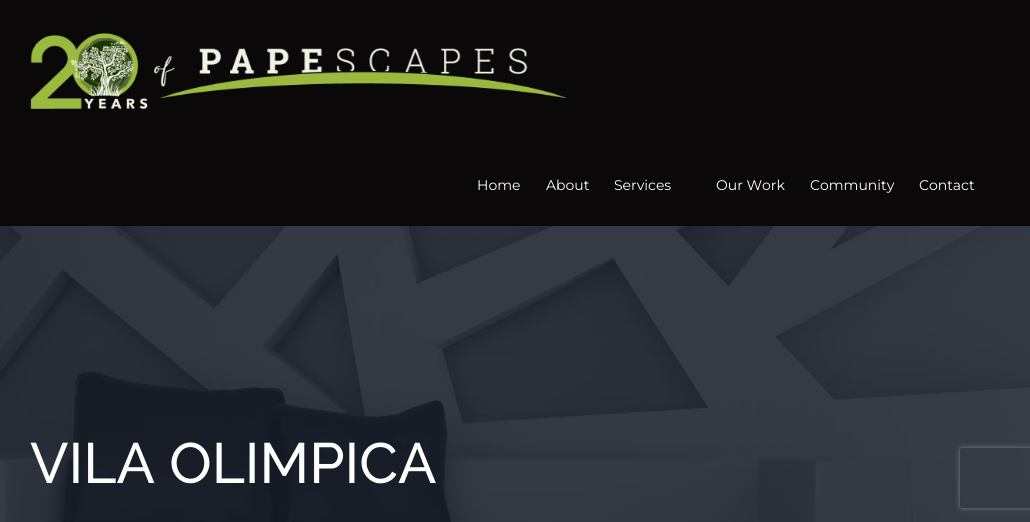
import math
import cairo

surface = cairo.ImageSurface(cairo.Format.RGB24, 1030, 522)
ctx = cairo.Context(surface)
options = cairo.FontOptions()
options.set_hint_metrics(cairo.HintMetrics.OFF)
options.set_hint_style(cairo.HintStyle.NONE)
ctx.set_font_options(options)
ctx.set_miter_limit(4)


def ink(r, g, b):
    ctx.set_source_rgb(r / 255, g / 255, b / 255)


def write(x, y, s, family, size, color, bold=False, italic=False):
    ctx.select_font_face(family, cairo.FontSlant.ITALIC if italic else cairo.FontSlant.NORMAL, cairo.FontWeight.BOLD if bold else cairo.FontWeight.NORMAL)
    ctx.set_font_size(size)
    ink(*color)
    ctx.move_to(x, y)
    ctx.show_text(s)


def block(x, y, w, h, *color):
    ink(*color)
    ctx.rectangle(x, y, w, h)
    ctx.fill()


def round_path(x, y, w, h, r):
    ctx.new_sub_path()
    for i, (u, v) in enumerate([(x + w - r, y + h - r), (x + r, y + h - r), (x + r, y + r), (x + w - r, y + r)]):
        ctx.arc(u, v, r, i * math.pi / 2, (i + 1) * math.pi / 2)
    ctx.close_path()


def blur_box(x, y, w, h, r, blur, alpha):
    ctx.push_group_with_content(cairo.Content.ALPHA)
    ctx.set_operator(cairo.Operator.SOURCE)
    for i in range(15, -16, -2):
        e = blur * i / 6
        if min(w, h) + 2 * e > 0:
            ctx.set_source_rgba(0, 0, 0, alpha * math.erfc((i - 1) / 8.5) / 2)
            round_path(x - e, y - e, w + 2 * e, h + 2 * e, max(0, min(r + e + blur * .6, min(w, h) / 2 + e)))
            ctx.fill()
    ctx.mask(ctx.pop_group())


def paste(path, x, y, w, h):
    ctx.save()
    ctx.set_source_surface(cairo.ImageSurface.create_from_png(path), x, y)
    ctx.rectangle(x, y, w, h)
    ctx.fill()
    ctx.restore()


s1 = dict(family="Montserrat Thin", size=14, color=(255, 255, 255))
s2 = dict(family="Raleway Thin", size=56.75, color=(255, 255, 255))

ink(255, 255, 255)
ctx.paint()
block(0, 0, 1030, 226, 10, 8, 8)
paste("pic1.png", 30, 33, 537, 76)
write(477, 190, "Home", **s1)
write(546, 190, "About", **s1)
write(614, 190, "Services", **s1)
write(716, 190, "Our Work", **s1)
write(810, 190, "Community", **s1)
write(919, 190, "Contact", **s1)
paste("pic2.png", 0, 226, 1030, 296)
write(30, 483, "VILA OLIMPICA", **s2)
ctx.save()
ctx.set_fill_rule(cairo.FillRule.EVEN_ODD)
ctx.new_path()
ctx.move_to(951, 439)
ctx.line_to(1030, 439)
ctx.line_to(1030, 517)
ctx.line_to(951, 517)
ctx.close_path()
ctx.move_to(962, 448)
ctx.line_to(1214, 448)
ctx.curve_to(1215, 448, 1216, 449, 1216, 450)
ctx.line_to(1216, 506)
ctx.curve_to(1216, 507, 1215, 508, 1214, 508)
ctx.line_to(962, 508)
ctx.curve_to(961, 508, 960, 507, 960, 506)
ctx.line_to(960, 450)
ctx.curve_to(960, 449, 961, 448, 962, 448)
ctx.close_path()
ctx.clip()
ink(128, 128, 128)
blur_box(960, 448, 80, 60, 2, 2.5, 1)
ctx.restore()
surface.write_to_png("screenshot.png")
